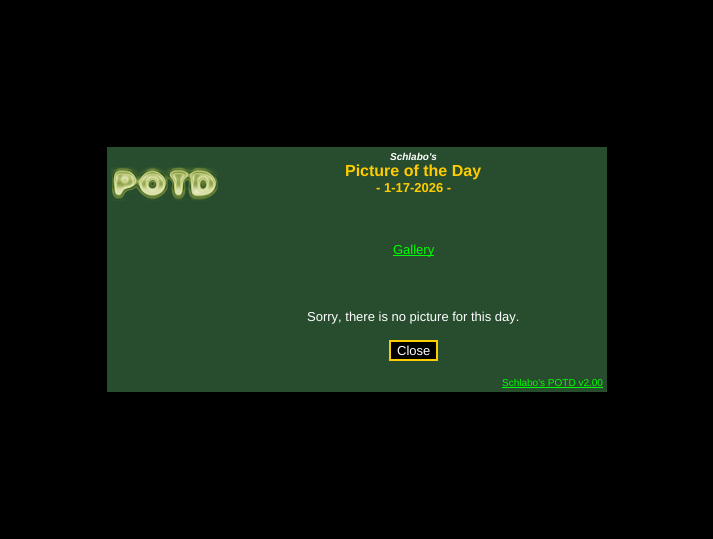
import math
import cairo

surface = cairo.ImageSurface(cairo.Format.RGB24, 713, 539)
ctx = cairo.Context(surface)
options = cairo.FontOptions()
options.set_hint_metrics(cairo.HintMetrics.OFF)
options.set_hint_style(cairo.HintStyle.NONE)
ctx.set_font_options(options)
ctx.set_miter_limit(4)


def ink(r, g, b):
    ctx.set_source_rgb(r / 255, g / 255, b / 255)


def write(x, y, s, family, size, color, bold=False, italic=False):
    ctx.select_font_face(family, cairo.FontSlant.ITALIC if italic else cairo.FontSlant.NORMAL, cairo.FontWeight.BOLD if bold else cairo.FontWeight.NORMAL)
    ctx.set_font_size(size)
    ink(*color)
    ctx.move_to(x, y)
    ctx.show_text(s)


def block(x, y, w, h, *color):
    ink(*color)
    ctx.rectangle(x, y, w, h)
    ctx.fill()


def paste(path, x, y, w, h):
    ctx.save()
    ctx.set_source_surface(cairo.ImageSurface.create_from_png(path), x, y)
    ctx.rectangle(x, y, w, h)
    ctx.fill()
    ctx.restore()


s1 = dict(family="Liberation Sans", size=10, color=(255, 255, 255), bold=True, italic=True)
s2 = dict(family="Liberation Sans", size=16, color=(255, 204, 0), bold=True)
s3 = dict(family="Liberation Sans", size=13, color=(255, 204, 0), bold=True)
s4 = dict(family="Liberation Sans", size=13, color=(0, 255, 0))
s5 = dict(family="Liberation Sans", size=13, color=(255, 255, 255))
s6 = dict(family="Liberation Sans", size=10, color=(0, 255, 0))

ink(0, 0, 0)
ctx.paint()
block(107, 147, 500, 245, 39, 77, 46)
paste("pic1.png", 111, 167, 107, 34)
write(390, 160, "Schlabo's", **s1)
write(345, 176, "Picture of the Day", **s2)
write(376, 192, "- 1-17-2026 -", **s3)
block(393, 255, 41, 1, 0, 255, 0)
write(393, 254, "Gallery", **s4)
write(307, 321, "Sorry, there is no picture for this day.", **s5)
ink(0, 0, 0)
ctx.rectangle(390, 341, 47, 19)
ctx.fill_preserve()
ink(255, 204, 0)
ctx.stroke()
write(397, 355, "Close", **s5)
write(502, 386, "Schlabo's POTD v2.00", **s6)
block(502, 387, 101, 1, 0, 255, 0)
surface.write_to_png("screenshot.png")
